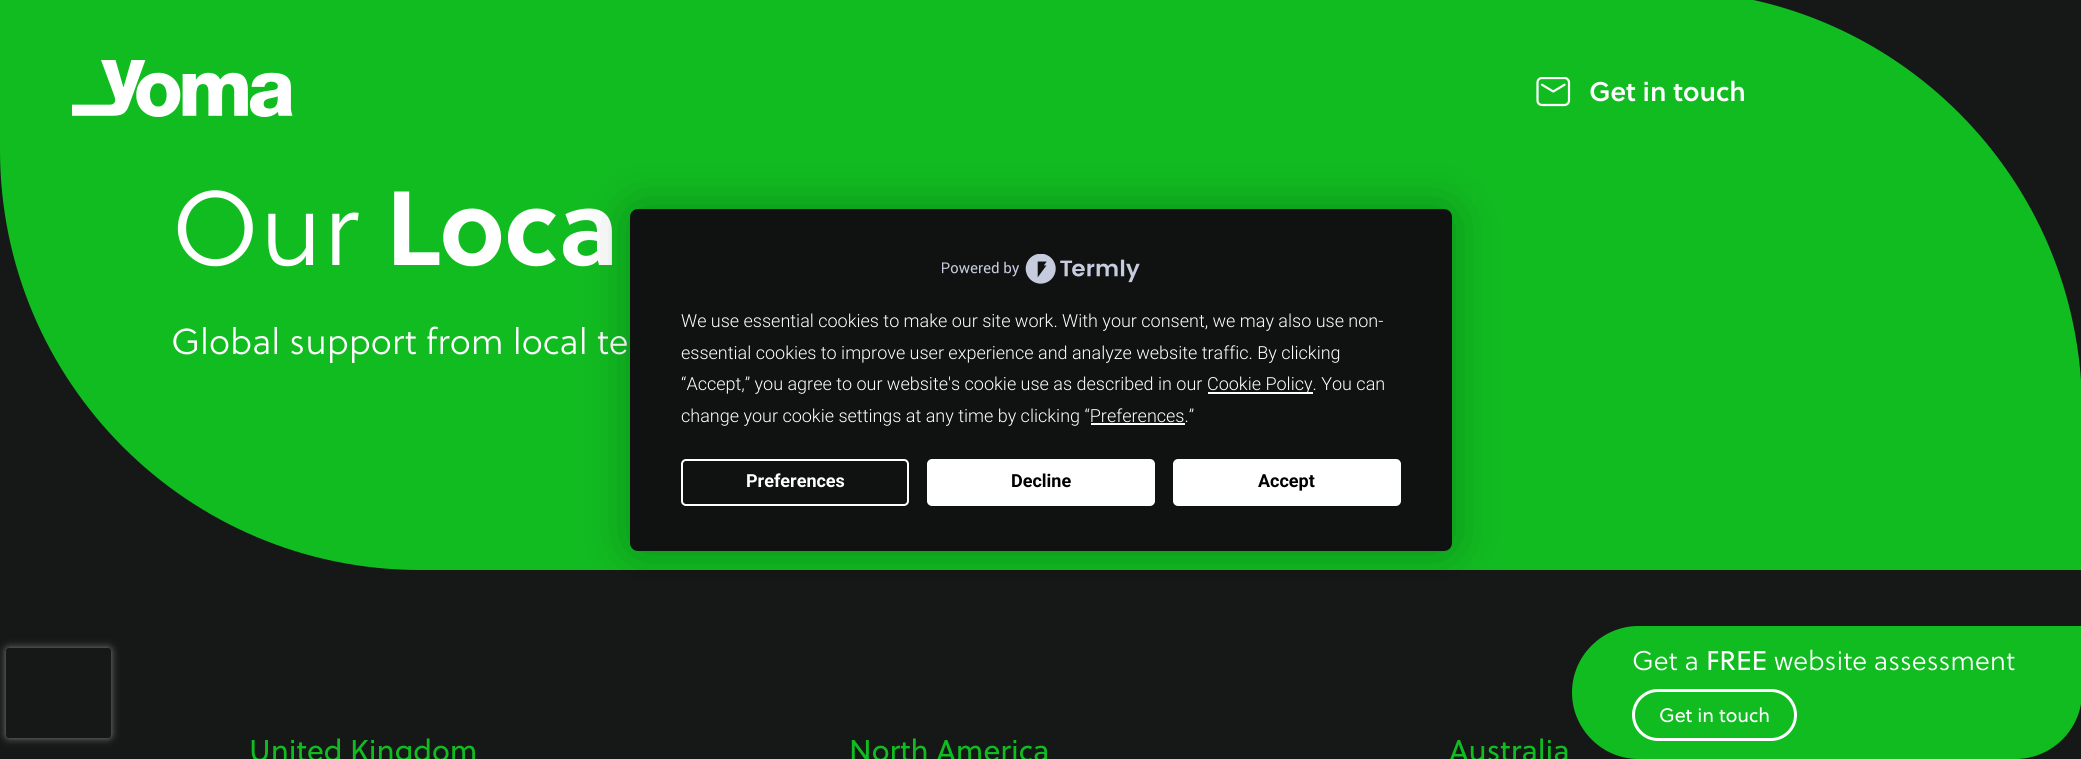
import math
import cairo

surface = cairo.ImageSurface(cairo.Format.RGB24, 2081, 759)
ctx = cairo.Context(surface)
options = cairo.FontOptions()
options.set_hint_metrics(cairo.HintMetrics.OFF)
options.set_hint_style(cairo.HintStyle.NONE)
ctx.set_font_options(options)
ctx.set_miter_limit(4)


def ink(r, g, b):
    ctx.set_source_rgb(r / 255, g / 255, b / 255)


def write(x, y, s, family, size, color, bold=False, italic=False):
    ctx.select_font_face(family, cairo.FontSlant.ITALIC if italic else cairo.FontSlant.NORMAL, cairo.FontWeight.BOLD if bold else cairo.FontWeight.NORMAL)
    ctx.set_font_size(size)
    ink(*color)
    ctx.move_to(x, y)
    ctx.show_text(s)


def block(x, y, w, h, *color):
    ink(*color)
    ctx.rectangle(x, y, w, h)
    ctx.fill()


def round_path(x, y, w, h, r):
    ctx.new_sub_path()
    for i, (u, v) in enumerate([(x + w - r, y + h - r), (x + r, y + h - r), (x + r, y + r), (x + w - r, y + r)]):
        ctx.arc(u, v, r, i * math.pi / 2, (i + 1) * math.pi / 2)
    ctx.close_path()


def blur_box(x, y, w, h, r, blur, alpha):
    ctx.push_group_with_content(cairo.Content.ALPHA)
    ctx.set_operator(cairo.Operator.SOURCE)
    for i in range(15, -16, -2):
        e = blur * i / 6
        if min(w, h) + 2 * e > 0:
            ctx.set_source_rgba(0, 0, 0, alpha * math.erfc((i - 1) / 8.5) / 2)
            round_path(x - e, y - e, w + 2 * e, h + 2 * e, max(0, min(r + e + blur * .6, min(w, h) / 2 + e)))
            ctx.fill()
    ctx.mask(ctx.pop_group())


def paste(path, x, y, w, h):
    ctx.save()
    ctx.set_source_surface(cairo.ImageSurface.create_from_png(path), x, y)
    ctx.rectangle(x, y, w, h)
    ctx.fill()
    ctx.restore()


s1 = dict(family="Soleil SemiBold", size=27, color=(255, 255, 255))
s2 = dict(family="Soleil Light", size=105, color=(255, 255, 255))
s3 = dict(family="Soleil", size=105, color=(255, 255, 255), bold=True)
s4 = dict(family="Soleil Light", size=36, color=(255, 255, 255))
s5 = dict(family="Soleil", size=30, color=(17, 188, 33))
s6 = dict(family="Soleil Light", size=27, color=(255, 255, 255))
s7 = dict(family="Soleil", size=27, color=(255, 255, 255))
s8 = dict(family="Soleil", size=19.5, color=(255, 255, 255))
s9 = dict(family="Roboto Light", size=18, color=(255, 255, 255))
s10 = dict(family="Roboto", size=18, color=(255, 255, 255), bold=True)
s11 = dict(family="Roboto", size=18, color=(0, 0, 0), bold=True)

ink(21, 24, 23)
ctx.paint()
ink(17, 188, 33)
ctx.new_path()
ctx.move_to(0, -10)
ctx.line_to(1662, -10)
ctx.curve_to(1894, -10, 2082, 178, 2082, 410)
ctx.line_to(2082, 570)
ctx.line_to(420, 570)
ctx.curve_to(188, 570, 0, 382, 0, 150)
ctx.close_path()
ctx.fill()
paste("pic1.png", 72, 60, 221, 57)
paste("pic2.png", 1536, 77, 35, 30)
write(1589, 101, "Get in touch", **s1)
write(171, 265, "Our", **s2)
write(386, 265, "Loca", **s3)
write(171, 354, "Global support from local te", **s4)
write(249, 761, "United Kingdom", **s5)
write(849, 761, "North America", **s5)
write(1449, 761, "Australia", **s5)
ctx.new_path()
ctx.move_to(1638.5, 626)
ctx.line_to(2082, 626)
ctx.line_to(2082, 692.5)
ctx.curve_to(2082, 729, 2052, 759, 2015.5, 759)
ctx.line_to(1638.5, 759)
ctx.curve_to(1602, 759, 1572, 729, 1572, 692.5)
ctx.curve_to(1572, 656, 1602, 626, 1638.5, 626)
ctx.close_path()
ctx.fill()
write(1632, 670, "Get a", **s6)
write(1706, 670, "FREE", **s7)
write(1774, 670, "website assessment", **s6)
round_path(1633.5, 690.5, 162, 49, 24.5)
ctx.set_line_width(3)
ctx.stroke()
write(1659, 722, "Get in touch", **s8)
ink(0, 0, 0)
blur_box(630, 209, 822, 342, 8, 26, 0.25)
ink(16, 18, 18)
round_path(630, 209, 822, 342, 8)
ctx.fill()
paste("pic3.png", 942, 254, 198, 30)
write(681, 327, "We use essential cookies to make our site work. With your consent, we may also use non-", **s9)
write(681, 359, "essential cookies to improve user experience and analyze website traffic. By clicking", **s9)
write(681, 390, "“Accept,” you agree to our website's cookie use as described in our", **s9)
block(1208, 392, 105, 2, 255, 255, 255)
write(1207, 390, "Cookie Policy. You can", **s9)
write(681, 422, "change your cookie settings at any time by clicking “Preferences.”", **s9)
block(1091, 423, 94, 2, 255, 255, 255)
round_path(682, 460, 226, 45, 4)
ctx.set_line_width(2)
ctx.stroke()
write(746, 487, "Preferences", **s10)
round_path(928, 460, 226, 45, 4)
ctx.fill_preserve()
ctx.stroke()
write(1011, 487, "Decline", **s11)
ink(255, 255, 255)
round_path(1174, 460, 226, 45, 4)
ctx.fill_preserve()
ctx.stroke()
write(1258, 487, "Accept", **s11)
ctx.save()
ctx.set_fill_rule(cairo.FillRule.EVEN_ODD)
ctx.new_path()
ctx.move_to(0, 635)
ctx.line_to(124, 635)
ctx.line_to(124, 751)
ctx.line_to(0, 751)
ctx.close_path()
ctx.move_to(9, 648)
ctx.line_to(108, 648)
ctx.curve_to(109.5, 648, 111, 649.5, 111, 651)
ctx.line_to(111, 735)
ctx.curve_to(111, 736.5, 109.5, 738, 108, 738)
ctx.line_to(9, 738)
ctx.curve_to(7.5, 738, 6, 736.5, 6, 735)
ctx.line_to(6, 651)
ctx.curve_to(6, 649.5, 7.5, 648, 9, 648)
ctx.close_path()
ctx.clip()
ink(128, 128, 128)
blur_box(6, 648, 105, 90, 3, 4, 1)
ctx.restore()
surface.write_to_png("screenshot.png")
